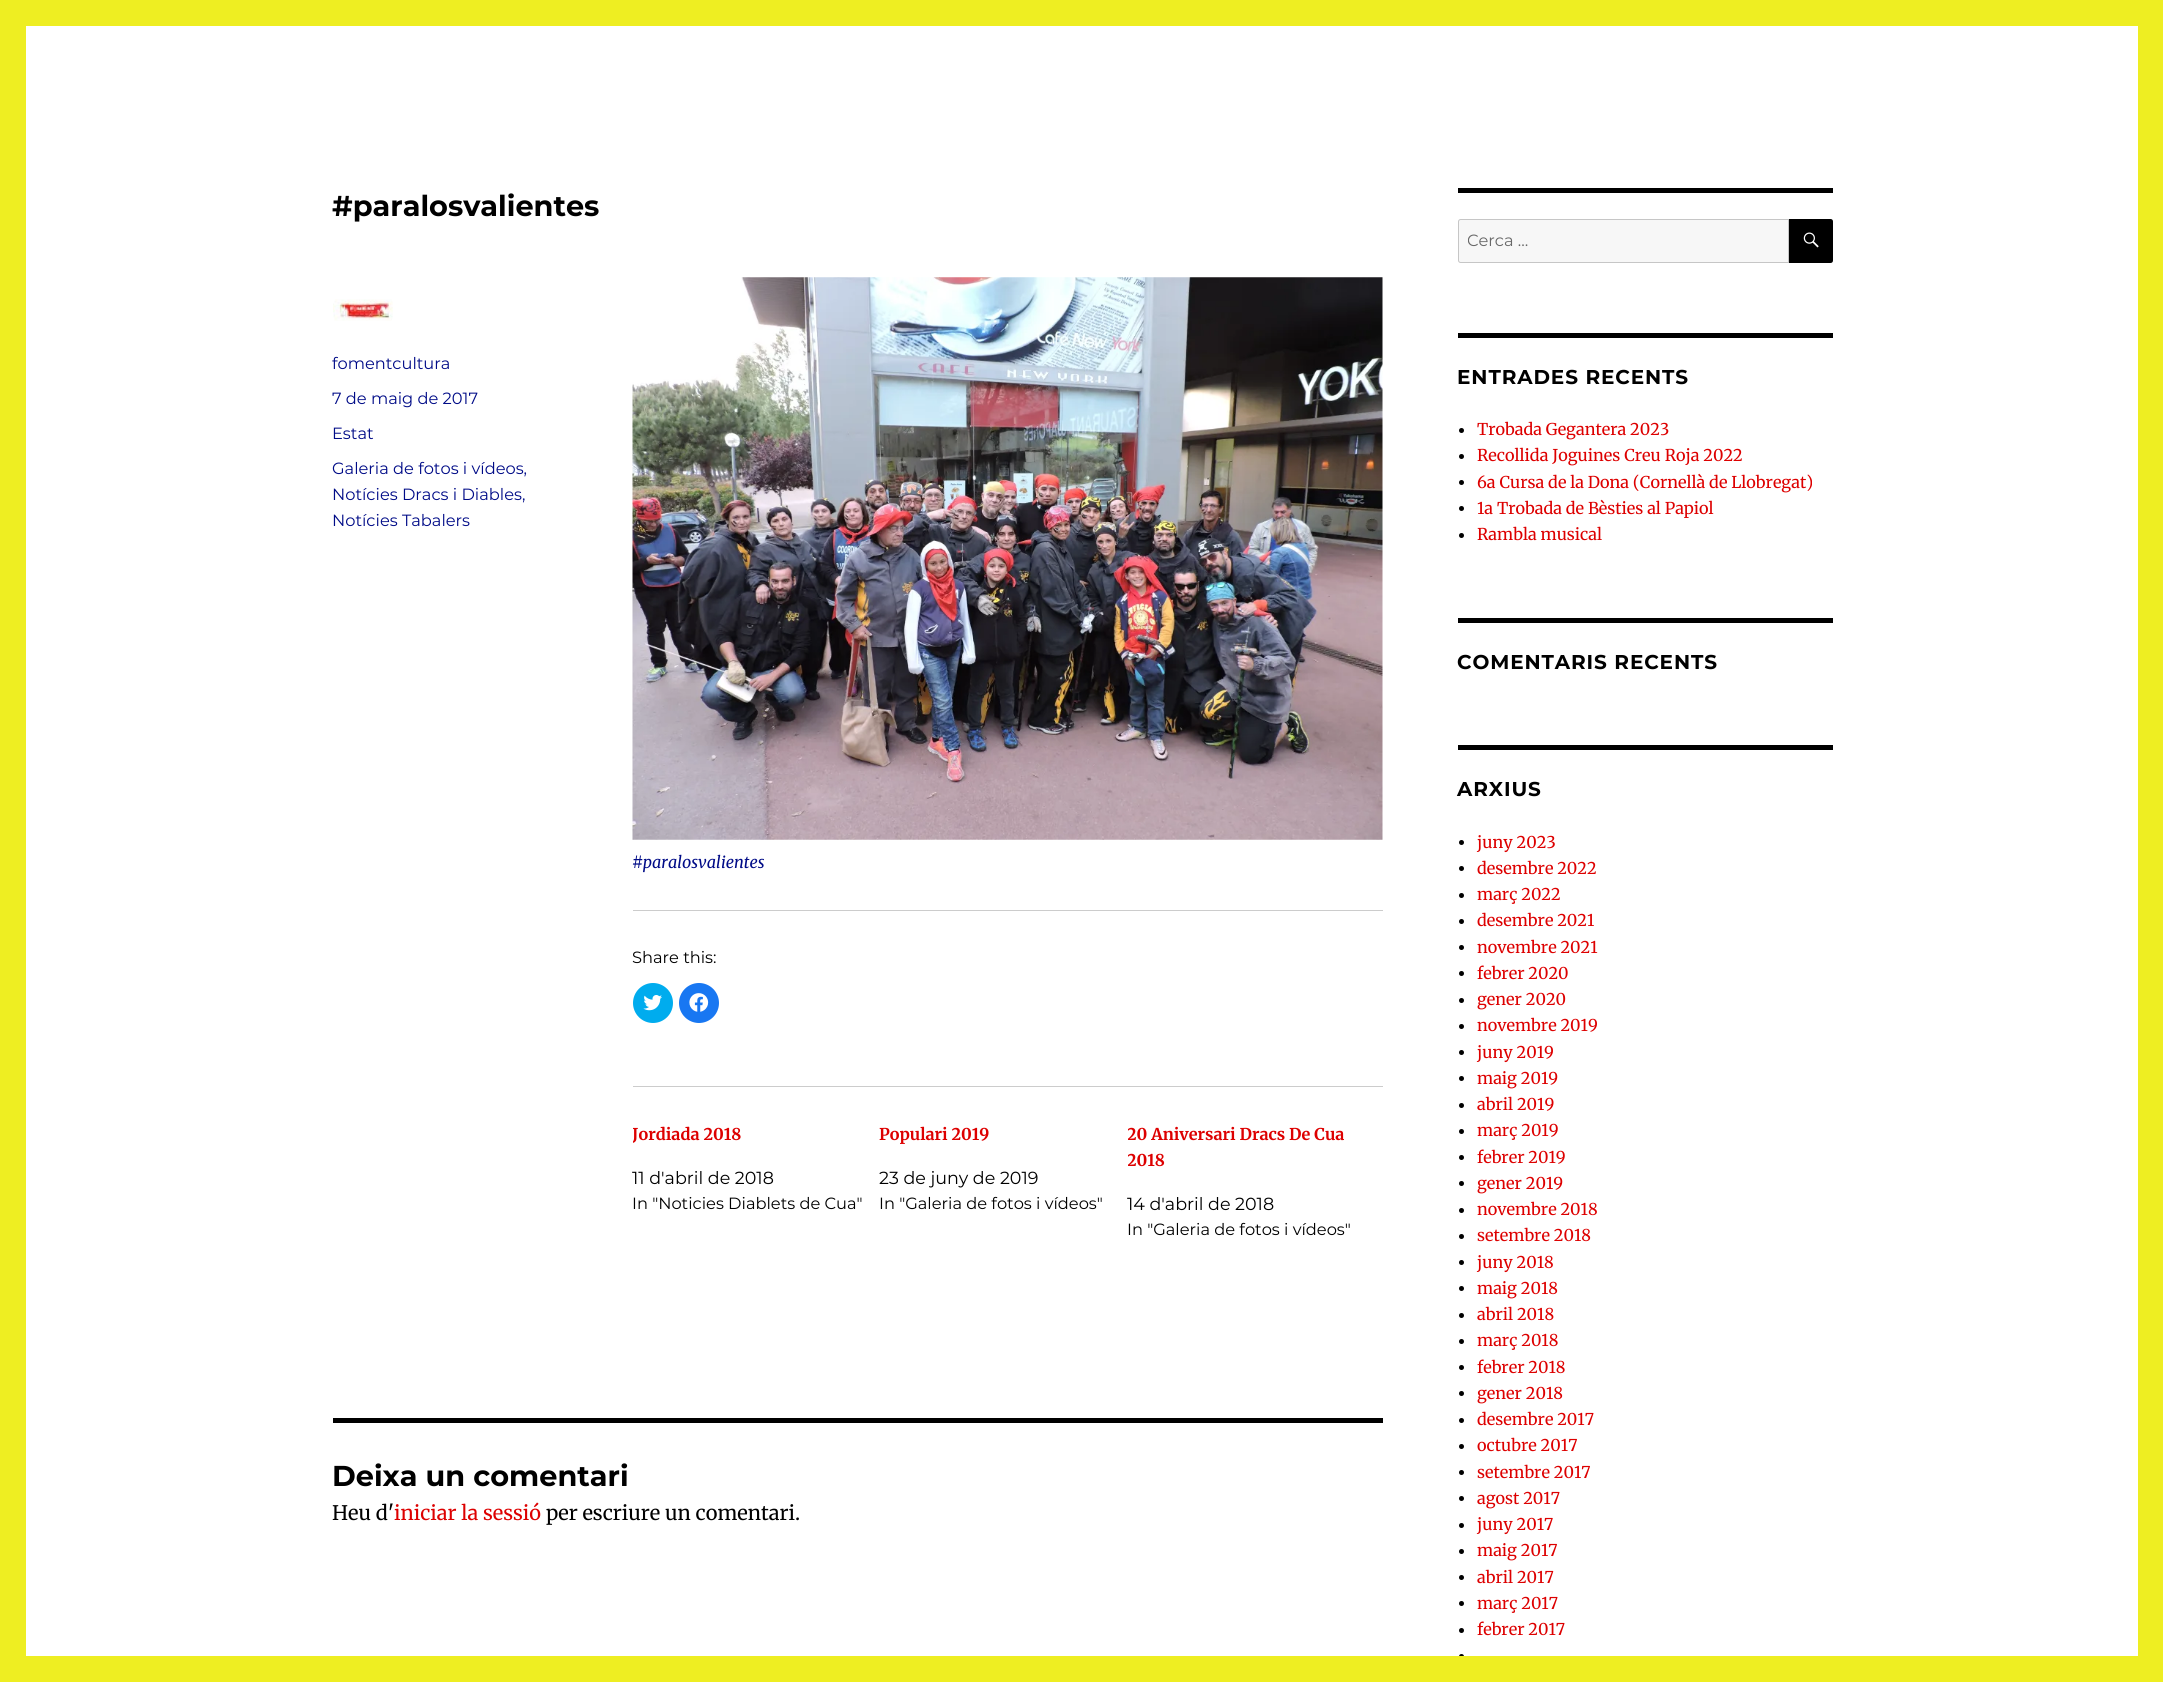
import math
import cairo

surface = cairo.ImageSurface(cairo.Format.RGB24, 2163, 1682)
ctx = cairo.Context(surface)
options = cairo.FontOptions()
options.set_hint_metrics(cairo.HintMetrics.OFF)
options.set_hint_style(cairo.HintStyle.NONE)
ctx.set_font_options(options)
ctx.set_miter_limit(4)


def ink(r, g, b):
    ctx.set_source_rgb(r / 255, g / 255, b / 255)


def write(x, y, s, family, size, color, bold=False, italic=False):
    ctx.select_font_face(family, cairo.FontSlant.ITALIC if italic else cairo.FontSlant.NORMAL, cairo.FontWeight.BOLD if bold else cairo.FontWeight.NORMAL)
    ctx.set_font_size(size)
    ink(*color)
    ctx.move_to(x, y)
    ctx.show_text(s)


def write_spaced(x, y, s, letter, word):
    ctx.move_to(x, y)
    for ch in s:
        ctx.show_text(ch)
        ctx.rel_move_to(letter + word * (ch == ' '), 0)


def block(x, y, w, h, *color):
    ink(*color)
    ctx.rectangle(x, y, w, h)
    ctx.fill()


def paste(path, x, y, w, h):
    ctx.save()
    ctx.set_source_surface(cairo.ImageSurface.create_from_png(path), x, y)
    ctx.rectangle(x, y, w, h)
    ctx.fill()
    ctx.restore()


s1 = dict(family="Montserrat", size=28.75, color=(0, 0, 0), bold=True)
s2 = dict(family="Montserrat", size=16.25, color=(0, 11, 135))
s3 = dict(family="Merriweather", size=16.25, color=(0, 11, 135), italic=True)
s4 = dict(family="Montserrat", size=16.25, color=(0, 0, 0))
s5 = dict(family="Merriweather", size=16.25, color=(221, 0, 0), bold=True)
s6 = dict(family="Montserrat", size=17.5, color=(0, 0, 0))
s7 = dict(family="Merriweather", size=20, color=(0, 0, 0))
s8 = dict(family="Merriweather", size=20, color=(221, 0, 0))
s9 = dict(family="Montserrat", size=16.25, color=(104, 104, 104))
s10 = dict(family="Merriweather", size=16.25, color=(221, 0, 0))

ink(238, 238, 34)
ctx.paint()
block(26, 26, 2112, 1630, 255, 255, 255)
write(332, 216, "#paralosvalientes", **s1)
paste("pic1.png", 333, 299, 60, 22)
write(332, 369, "fomentcultura", **s2)
write(332, 404, "7 de maig de 2017", **s2)
write(332, 439, "Estat", **s2)
write(332, 474, "Galeria de fotos i vídeos,", **s2)
write(332, 500, "Notícies Dracs i Diables,", **s2)
write(332, 526, "Notícies Tabalers", **s2)
paste("pic2.png", 632, 277, 751, 563)
write(632, 868, "#paralosvalientes", **s3)
block(633, 910, 750, 1, 204, 204, 204)
write(632, 963, "Share this:", **s4)
ink(0, 172, 238)
ctx.new_path()
ctx.arc(653, 1003, 20, 0, 2 * math.pi)
ctx.fill()
paste("pic3.png", 643, 995, 19, 16)
ink(24, 119, 242)
ctx.arc(699, 1003, 20, 0, 2 * math.pi)
ctx.fill()
paste("pic4.png", 689, 993, 20, 19)
block(633, 1086, 750, 1, 204, 204, 204)
ctx.save()
ctx.rectangle(633, 1121, 232, 27)
ctx.clip()
write(632, 1140, "Jordiada 2018", **s5)
ctx.restore()
write(632, 1184, "11 d'abril de 2018", **s6)
write(632, 1209, "In \"Noticies Diablets de Cua\"", **s4)
write(879, 1140, "Populari 2019", **s5)
write(879, 1184, "23 de juny de 2019", **s6)
write(879, 1209, "In \"Galeria de fotos i vídeos\"", **s4)
ctx.save()
ctx.rectangle(1128, 1121, 232, 53)
ctx.clip()
write(1127, 1140, "20 Aniversari Dracs De Cua", **s5)
write(1127, 1166, "2018", **s5)
ctx.restore()
write(1127, 1210, "14 d'abril de 2018", **s6)
write(1127, 1235, "In \"Galeria de fotos i vídeos\"", **s4)
block(333, 1418, 1050, 5, 0, 0, 0)
write(332, 1486, "Deixa un comentari", **s1)
write(332, 1520, "Heu d'", **s7)
write(394, 1520, "iniciar la sessió", **s8)
write(546, 1520, "per escriure un comentari.", **s7)
block(1458, 188, 375, 5, 0, 0, 0)
ink(247, 247, 247)
ctx.new_path()
ctx.move_to(1460.5, 219.5)
ctx.line_to(1788.5, 219.5)
ctx.line_to(1788.5, 262.5)
ctx.line_to(1460.5, 262.5)
ctx.curve_to(1459.5, 262.5, 1458.5, 261.5, 1458.5, 260.5)
ctx.line_to(1458.5, 221.5)
ctx.curve_to(1458.5, 220.5, 1459.5, 219.5, 1460.5, 219.5)
ctx.close_path()
ctx.fill_preserve()
ink(198, 198, 198)
ctx.set_line_width(1)
ctx.stroke()
ctx.save()
ctx.rectangle(1468, 230, 306, 20)
ctx.clip()
write(1467, 246, "Cerca …", **s9)
ctx.restore()
ink(0, 0, 0)
ctx.new_path()
ctx.move_to(1789, 219)
ctx.line_to(1830.5, 219)
ctx.curve_to(1832, 219, 1833, 220, 1833, 221.5)
ctx.line_to(1833, 260.5)
ctx.curve_to(1833, 262, 1832, 263, 1830.5, 263)
ctx.line_to(1789, 263)
ctx.close_path()
ctx.fill()
paste("pic5.png", 1803, 232, 16, 16)
block(1458, 333, 375, 5, 0, 0, 0)
ctx.select_font_face("Montserrat", cairo.FontSlant.NORMAL, cairo.FontWeight.BOLD)
write_spaced(1457, 384, "ENTRADES RECENTS", 0.9, 0)
ctx.new_path()
ctx.arc(1461.5, 430.5, 2.5, 0, 2 * math.pi)
ctx.fill()
write(1477, 435, "Trobada Gegantera 2023", **s10)
ink(0, 0, 0)
ctx.new_path()
ctx.arc(1461.5, 456.5, 2.5, 0, 2 * math.pi)
ctx.fill()
write(1477, 461, "Recollida Joguines Creu Roja 2022", **s10)
ink(0, 0, 0)
ctx.new_path()
ctx.arc(1461.5, 482.5, 2.5, 0, 2 * math.pi)
ctx.fill()
write(1477, 488, "6a Cursa de la Dona (Cornellà de Llobregat)", **s10)
ink(0, 0, 0)
ctx.new_path()
ctx.arc(1461.5, 508.5, 2.5, 0, 2 * math.pi)
ctx.fill()
write(1477, 514, "1a Trobada de Bèsties al Papiol", **s10)
ink(0, 0, 0)
ctx.new_path()
ctx.arc(1461.5, 535.5, 2.5, 0, 2 * math.pi)
ctx.fill()
write(1477, 540, "Rambla musical", **s10)
block(1458, 618, 375, 5, 0, 0, 0)
ctx.select_font_face("Montserrat", cairo.FontSlant.NORMAL, cairo.FontWeight.BOLD)
ctx.set_font_size(20)
write_spaced(1457, 669, "COMENTARIS RECENTS", 0.9, 0)
block(1458, 745, 375, 5, 0, 0, 0)
write_spaced(1457, 796, "ARXIUS", 0.9, 0)
ctx.new_path()
ctx.arc(1461.5, 842.5, 2.5, 0, 2 * math.pi)
ctx.fill()
write(1477, 848, "juny 2023", **s10)
ink(0, 0, 0)
ctx.new_path()
ctx.arc(1461.5, 868.5, 2.5, 0, 2 * math.pi)
ctx.fill()
write(1477, 874, "desembre 2022", **s10)
ink(0, 0, 0)
ctx.new_path()
ctx.arc(1461.5, 895.5, 2.5, 0, 2 * math.pi)
ctx.fill()
write(1477, 900, "març 2022", **s10)
ink(0, 0, 0)
ctx.new_path()
ctx.arc(1461.5, 921.5, 2.5, 0, 2 * math.pi)
ctx.fill()
write(1477, 926, "desembre 2021", **s10)
ink(0, 0, 0)
ctx.new_path()
ctx.arc(1461.5, 947.5, 2.5, 0, 2 * math.pi)
ctx.fill()
write(1477, 953, "novembre 2021", **s10)
ink(0, 0, 0)
ctx.new_path()
ctx.arc(1461.5, 973.5, 2.5, 0, 2 * math.pi)
ctx.fill()
write(1477, 979, "febrer 2020", **s10)
ink(0, 0, 0)
ctx.new_path()
ctx.arc(1461.5, 1000.5, 2.5, 0, 2 * math.pi)
ctx.fill()
write(1477, 1005, "gener 2020", **s10)
ink(0, 0, 0)
ctx.new_path()
ctx.arc(1461.5, 1026.5, 2.5, 0, 2 * math.pi)
ctx.fill()
write(1477, 1031, "novembre 2019", **s10)
ink(0, 0, 0)
ctx.new_path()
ctx.arc(1461.5, 1052.5, 2.5, 0, 2 * math.pi)
ctx.fill()
write(1477, 1058, "juny 2019", **s10)
ink(0, 0, 0)
ctx.new_path()
ctx.arc(1461.5, 1078.5, 2.5, 0, 2 * math.pi)
ctx.fill()
write(1477, 1084, "maig 2019", **s10)
ink(0, 0, 0)
ctx.new_path()
ctx.arc(1461.5, 1105.5, 2.5, 0, 2 * math.pi)
ctx.fill()
write(1477, 1110, "abril 2019", **s10)
ink(0, 0, 0)
ctx.new_path()
ctx.arc(1461.5, 1131.5, 2.5, 0, 2 * math.pi)
ctx.fill()
write(1477, 1136, "març 2019", **s10)
ink(0, 0, 0)
ctx.new_path()
ctx.arc(1461.5, 1157.5, 2.5, 0, 2 * math.pi)
ctx.fill()
write(1477, 1163, "febrer 2019", **s10)
ink(0, 0, 0)
ctx.new_path()
ctx.arc(1461.5, 1183.5, 2.5, 0, 2 * math.pi)
ctx.fill()
write(1477, 1189, "gener 2019", **s10)
ink(0, 0, 0)
ctx.new_path()
ctx.arc(1461.5, 1210.5, 2.5, 0, 2 * math.pi)
ctx.fill()
write(1477, 1215, "novembre 2018", **s10)
ink(0, 0, 0)
ctx.new_path()
ctx.arc(1461.5, 1236.5, 2.5, 0, 2 * math.pi)
ctx.fill()
write(1477, 1241, "setembre 2018", **s10)
ink(0, 0, 0)
ctx.new_path()
ctx.arc(1461.5, 1262.5, 2.5, 0, 2 * math.pi)
ctx.fill()
write(1477, 1268, "juny 2018", **s10)
ink(0, 0, 0)
ctx.new_path()
ctx.arc(1461.5, 1288.5, 2.5, 0, 2 * math.pi)
ctx.fill()
write(1477, 1294, "maig 2018", **s10)
ink(0, 0, 0)
ctx.new_path()
ctx.arc(1461.5, 1315.5, 2.5, 0, 2 * math.pi)
ctx.fill()
write(1477, 1320, "abril 2018", **s10)
ink(0, 0, 0)
ctx.new_path()
ctx.arc(1461.5, 1341.5, 2.5, 0, 2 * math.pi)
ctx.fill()
write(1477, 1346, "març 2018", **s10)
ink(0, 0, 0)
ctx.new_path()
ctx.arc(1461.5, 1367.5, 2.5, 0, 2 * math.pi)
ctx.fill()
write(1477, 1373, "febrer 2018", **s10)
ink(0, 0, 0)
ctx.new_path()
ctx.arc(1461.5, 1393.5, 2.5, 0, 2 * math.pi)
ctx.fill()
write(1477, 1399, "gener 2018", **s10)
ink(0, 0, 0)
ctx.new_path()
ctx.arc(1461.5, 1420.5, 2.5, 0, 2 * math.pi)
ctx.fill()
write(1477, 1425, "desembre 2017", **s10)
ink(0, 0, 0)
ctx.new_path()
ctx.arc(1461.5, 1446.5, 2.5, 0, 2 * math.pi)
ctx.fill()
write(1477, 1451, "octubre 2017", **s10)
ink(0, 0, 0)
ctx.new_path()
ctx.arc(1461.5, 1472.5, 2.5, 0, 2 * math.pi)
ctx.fill()
write(1477, 1478, "setembre 2017", **s10)
ink(0, 0, 0)
ctx.new_path()
ctx.arc(1461.5, 1498.5, 2.5, 0, 2 * math.pi)
ctx.fill()
write(1477, 1504, "agost 2017", **s10)
ink(0, 0, 0)
ctx.new_path()
ctx.arc(1461.5, 1525.5, 2.5, 0, 2 * math.pi)
ctx.fill()
write(1477, 1530, "juny 2017", **s10)
ink(0, 0, 0)
ctx.new_path()
ctx.arc(1461.5, 1551.5, 2.5, 0, 2 * math.pi)
ctx.fill()
write(1477, 1556, "maig 2017", **s10)
ink(0, 0, 0)
ctx.new_path()
ctx.arc(1461.5, 1577.5, 2.5, 0, 2 * math.pi)
ctx.fill()
write(1477, 1583, "abril 2017", **s10)
ink(0, 0, 0)
ctx.new_path()
ctx.arc(1461.5, 1603.5, 2.5, 0, 2 * math.pi)
ctx.fill()
write(1477, 1609, "març 2017", **s10)
ink(0, 0, 0)
ctx.new_path()
ctx.arc(1461.5, 1630.5, 2.5, 0, 2 * math.pi)
ctx.fill()
write(1477, 1635, "febrer 2017", **s10)
ink(0, 0, 0)
ctx.new_path()
ctx.arc(1461.5, 1656.5, 2.5, 0, 2 * math.pi)
ctx.fill()
block(1459, 1656, 5, 3, 238, 238, 34)
surface.write_to_png("screenshot.png")
